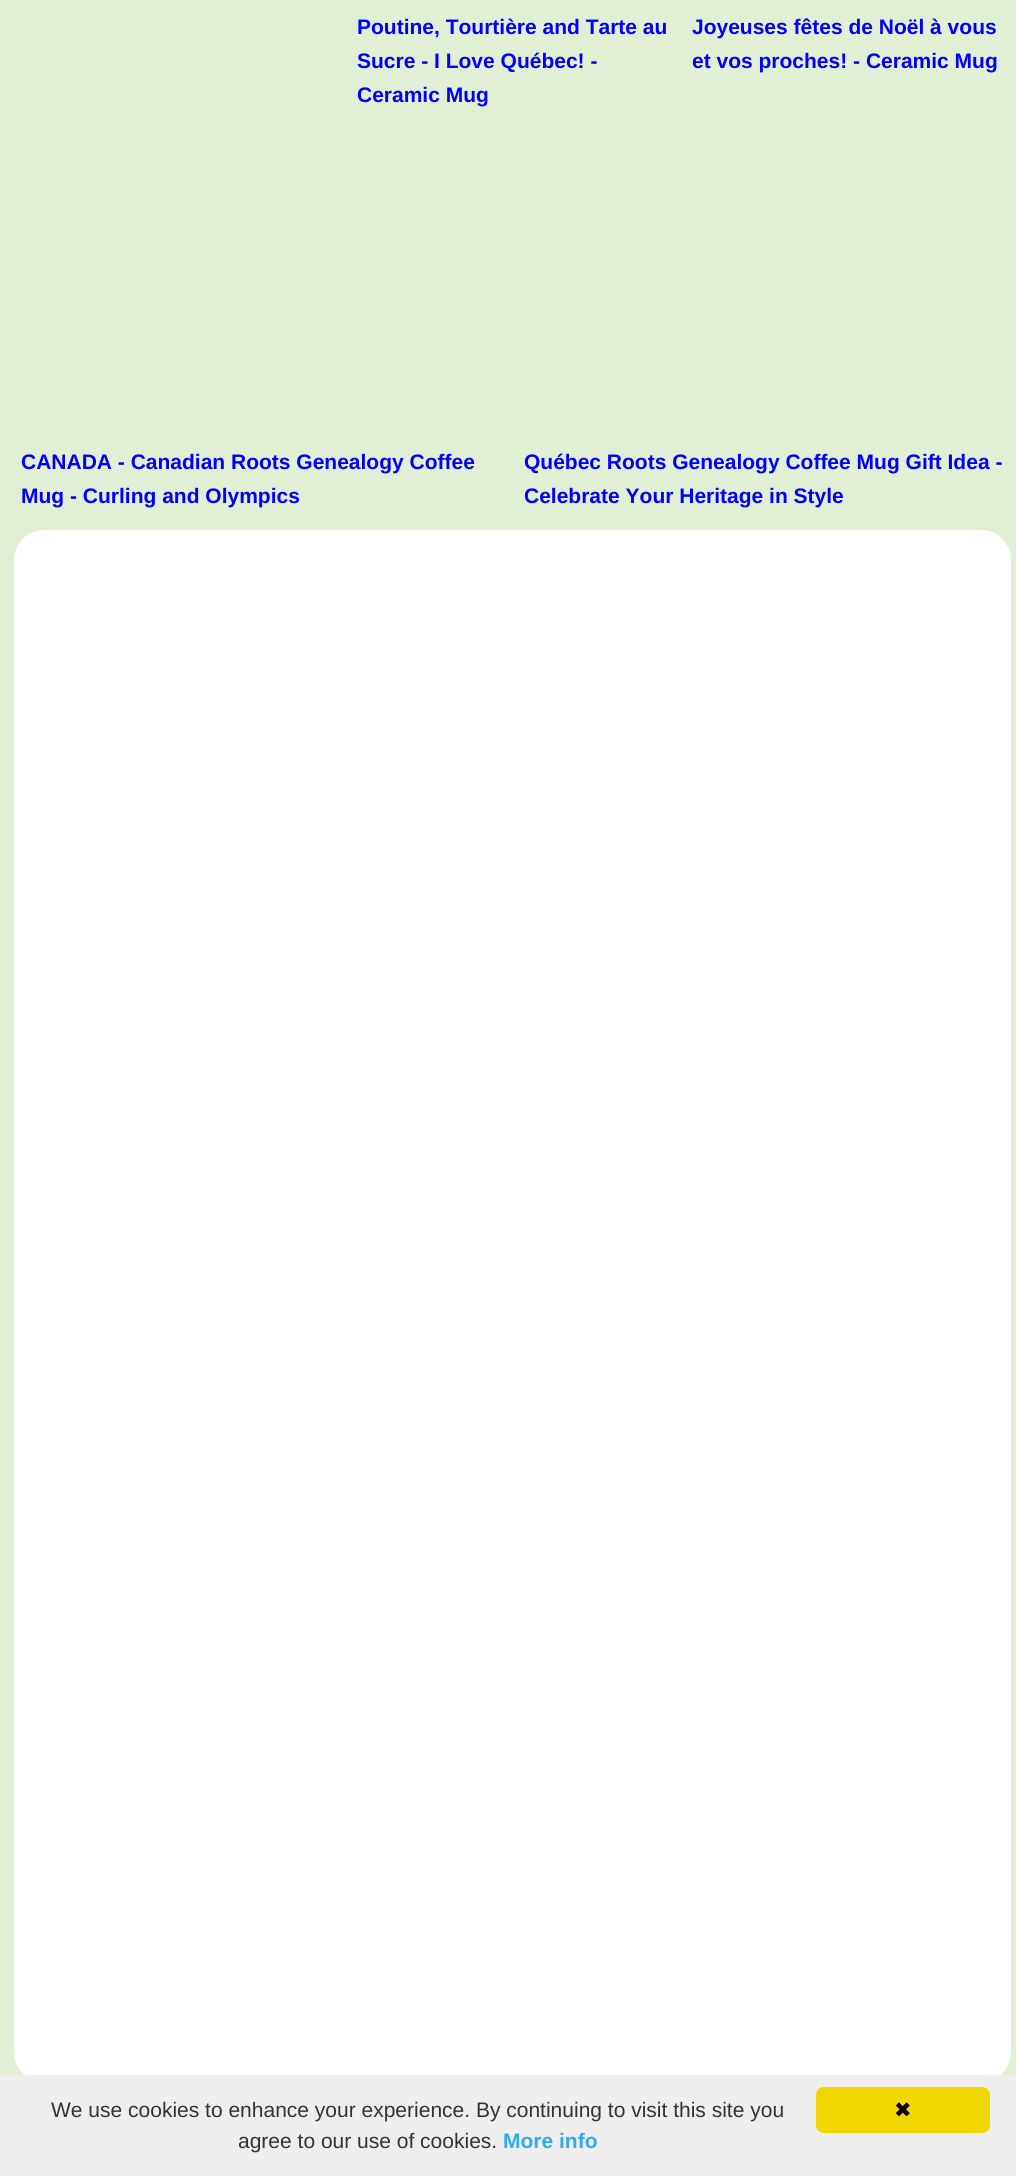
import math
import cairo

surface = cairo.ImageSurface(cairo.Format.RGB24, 1016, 2176)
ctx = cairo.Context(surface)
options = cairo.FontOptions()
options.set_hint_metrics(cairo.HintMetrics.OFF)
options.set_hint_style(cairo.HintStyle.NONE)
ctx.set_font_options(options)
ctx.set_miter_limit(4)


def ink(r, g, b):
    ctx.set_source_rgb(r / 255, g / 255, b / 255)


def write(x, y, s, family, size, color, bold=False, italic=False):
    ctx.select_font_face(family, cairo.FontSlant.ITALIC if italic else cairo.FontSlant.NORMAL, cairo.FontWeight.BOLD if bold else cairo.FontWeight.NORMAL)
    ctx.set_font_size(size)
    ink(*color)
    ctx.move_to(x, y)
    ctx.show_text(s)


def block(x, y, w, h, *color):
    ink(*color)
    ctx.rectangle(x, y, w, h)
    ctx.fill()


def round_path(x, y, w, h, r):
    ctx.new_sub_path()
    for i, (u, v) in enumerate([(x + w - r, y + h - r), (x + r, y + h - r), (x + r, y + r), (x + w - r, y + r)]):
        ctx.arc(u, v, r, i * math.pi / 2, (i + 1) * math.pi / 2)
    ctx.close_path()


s1 = dict(family="Liberation Sans", size=21, color=(0, 0, 255), bold=True)
s2 = dict(family="Liberation Sans", size=21, color=(51, 51, 51))
s3 = dict(family="Liberation Sans", size=21, color=(49, 168, 240), bold=True)
s4 = dict(family="DejaVu Sans", size=21, color=(0, 0, 0))

ink(225, 240, 213)
ctx.paint()
write(357, 34, "Poutine, Tourtière and Tarte au", **s1)
write(357, 68, "Sucre - I Love Québec! -", **s1)
write(357, 102, "Ceramic Mug", **s1)
write(692, 34, "Joyeuses fêtes de Noël à vous", **s1)
write(692, 68, "et vos proches! - Ceramic Mug", **s1)
write(21, 469, "CANADA - Canadian Roots Genealogy Coffee", **s1)
write(21, 503, "Mug - Curling and Olympics", **s1)
write(524, 469, "Québec Roots Genealogy Coffee Mug Gift Idea -", **s1)
write(524, 503, "Celebrate Your Heritage in Style", **s1)
ink(255, 255, 255)
round_path(14, 530, 997, 1552, 30)
ctx.fill()
block(0, 2075, 1016, 101, 238, 238, 238)
write(51, 2117, "We use cookies to enhance your experience. By continuing to visit this site you", **s2)
write(238, 2148, "agree to our use of cookies.", **s2)
write(503, 2148, "More info", **s3)
ink(241, 214, 0)
round_path(816, 2087, 174, 46, 8)
ctx.fill()
write(894, 2117, "✖", **s4)
surface.write_to_png("screenshot.png")
